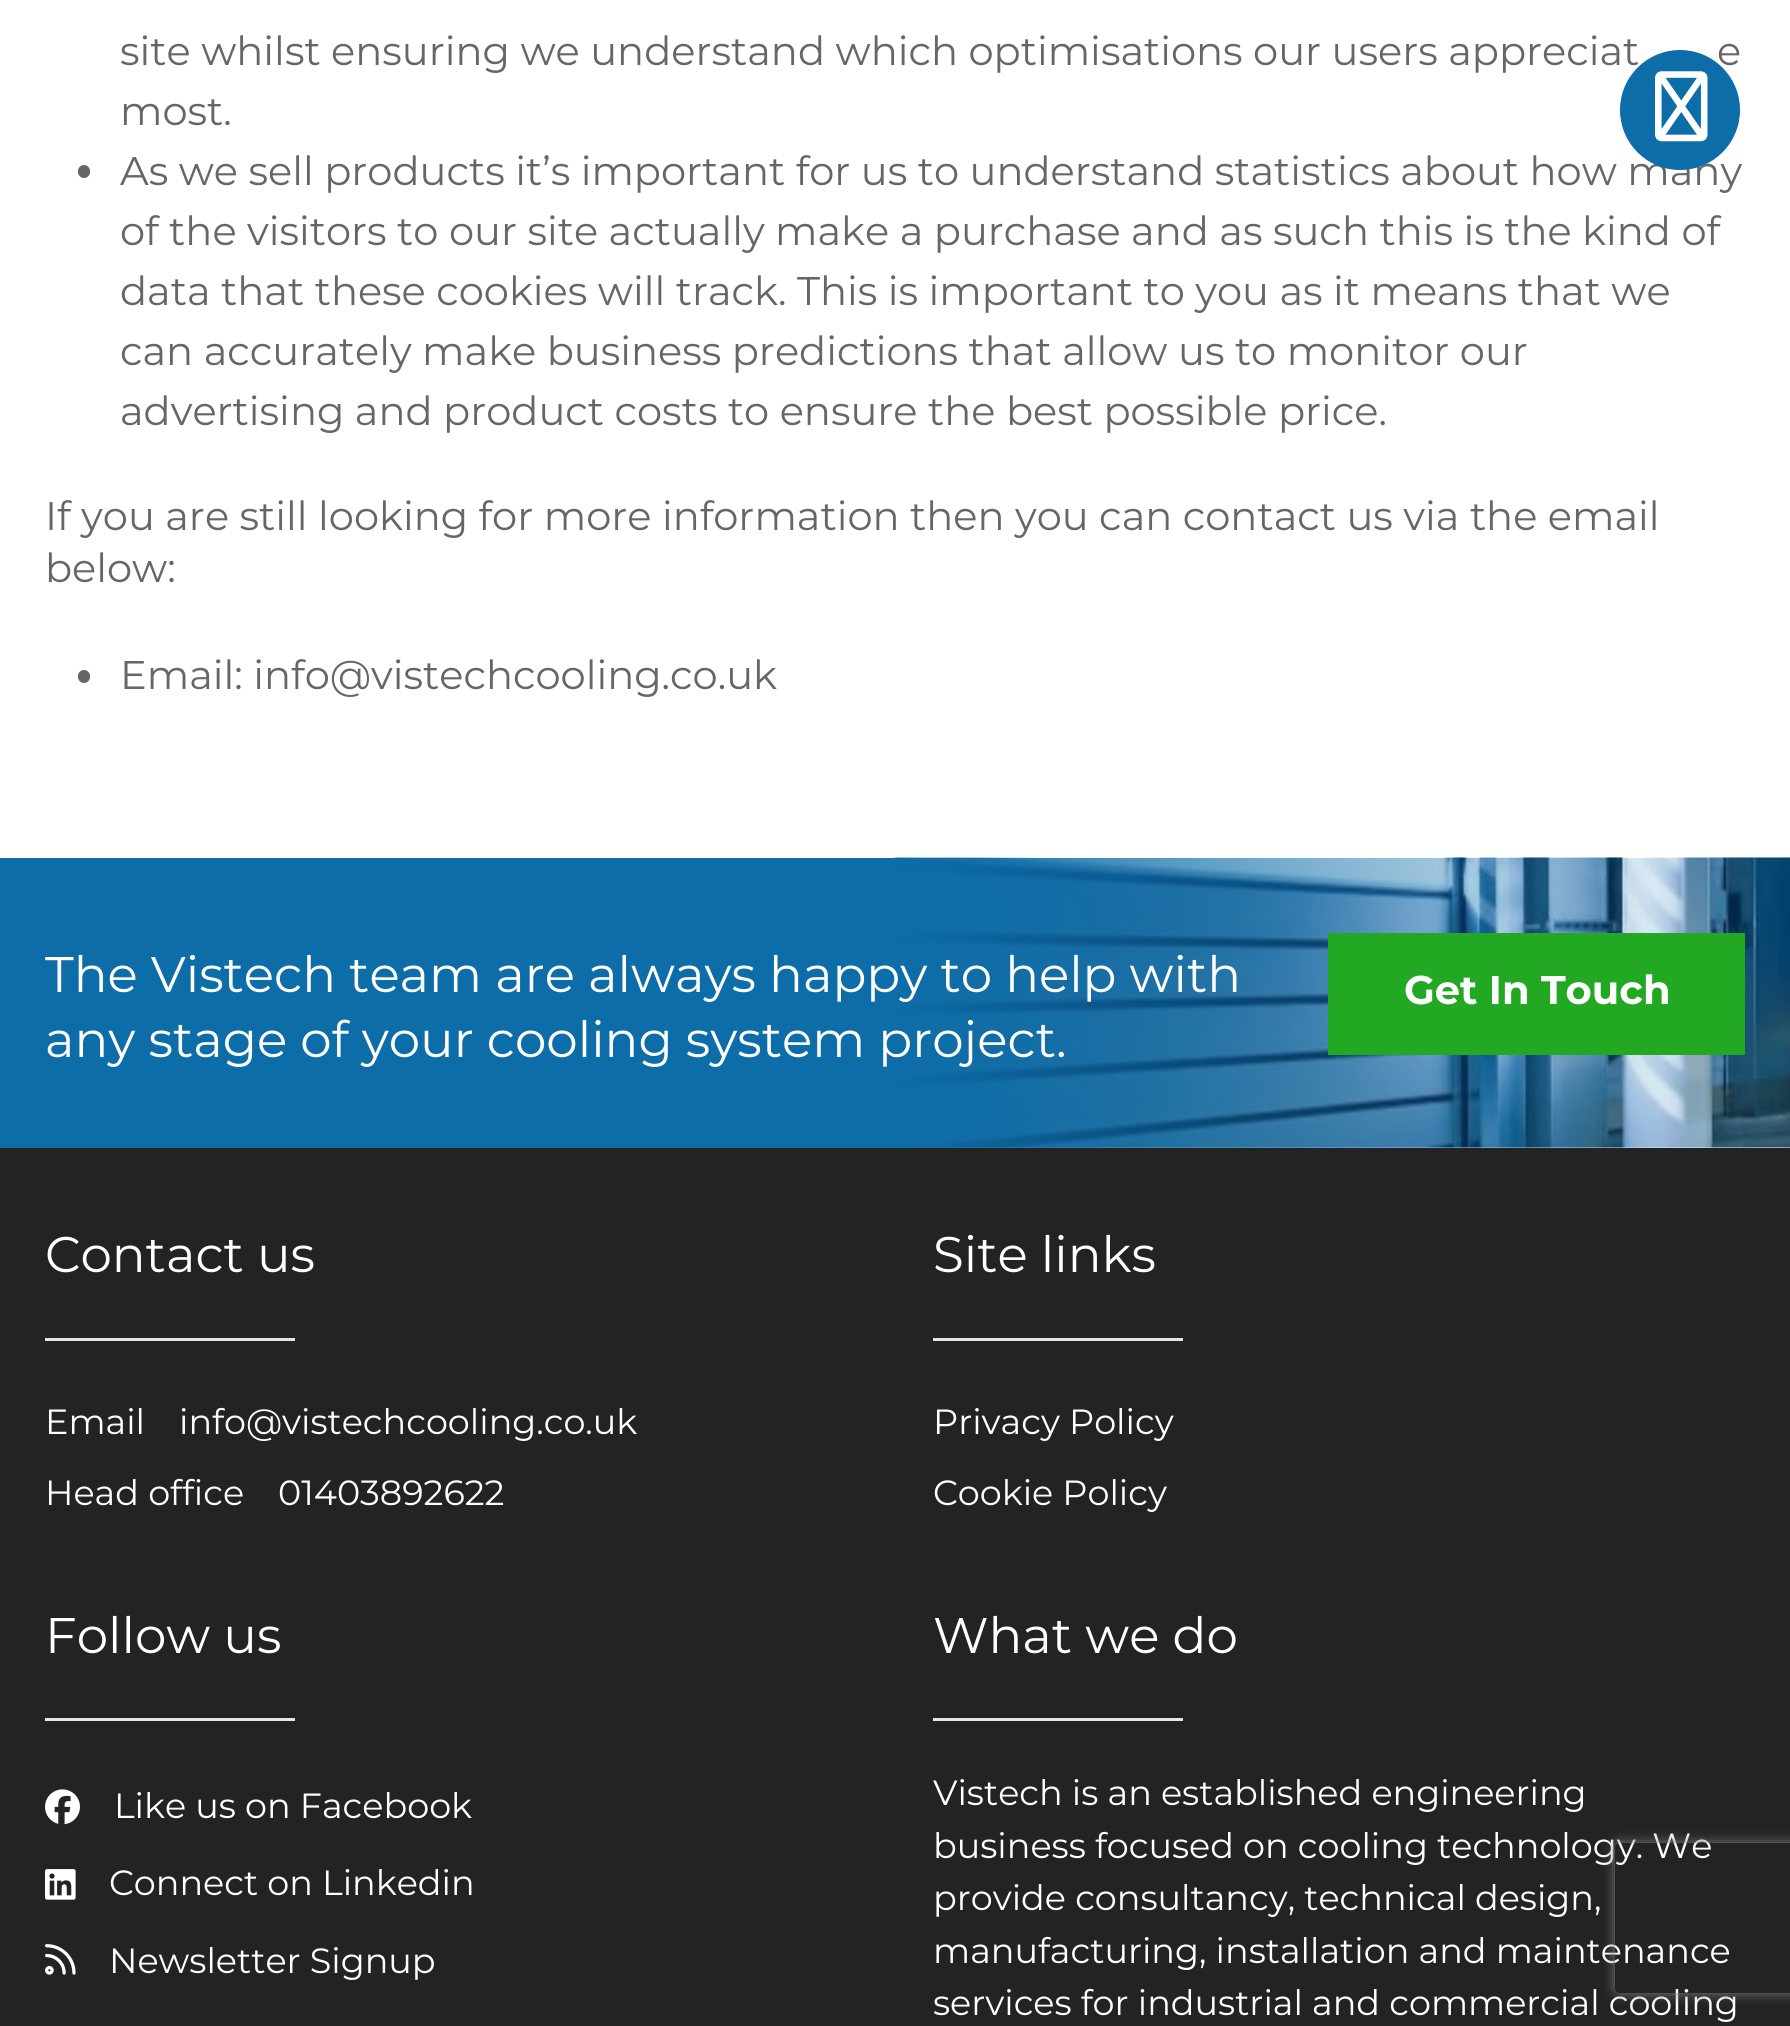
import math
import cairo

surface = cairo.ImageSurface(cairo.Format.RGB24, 1790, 2026)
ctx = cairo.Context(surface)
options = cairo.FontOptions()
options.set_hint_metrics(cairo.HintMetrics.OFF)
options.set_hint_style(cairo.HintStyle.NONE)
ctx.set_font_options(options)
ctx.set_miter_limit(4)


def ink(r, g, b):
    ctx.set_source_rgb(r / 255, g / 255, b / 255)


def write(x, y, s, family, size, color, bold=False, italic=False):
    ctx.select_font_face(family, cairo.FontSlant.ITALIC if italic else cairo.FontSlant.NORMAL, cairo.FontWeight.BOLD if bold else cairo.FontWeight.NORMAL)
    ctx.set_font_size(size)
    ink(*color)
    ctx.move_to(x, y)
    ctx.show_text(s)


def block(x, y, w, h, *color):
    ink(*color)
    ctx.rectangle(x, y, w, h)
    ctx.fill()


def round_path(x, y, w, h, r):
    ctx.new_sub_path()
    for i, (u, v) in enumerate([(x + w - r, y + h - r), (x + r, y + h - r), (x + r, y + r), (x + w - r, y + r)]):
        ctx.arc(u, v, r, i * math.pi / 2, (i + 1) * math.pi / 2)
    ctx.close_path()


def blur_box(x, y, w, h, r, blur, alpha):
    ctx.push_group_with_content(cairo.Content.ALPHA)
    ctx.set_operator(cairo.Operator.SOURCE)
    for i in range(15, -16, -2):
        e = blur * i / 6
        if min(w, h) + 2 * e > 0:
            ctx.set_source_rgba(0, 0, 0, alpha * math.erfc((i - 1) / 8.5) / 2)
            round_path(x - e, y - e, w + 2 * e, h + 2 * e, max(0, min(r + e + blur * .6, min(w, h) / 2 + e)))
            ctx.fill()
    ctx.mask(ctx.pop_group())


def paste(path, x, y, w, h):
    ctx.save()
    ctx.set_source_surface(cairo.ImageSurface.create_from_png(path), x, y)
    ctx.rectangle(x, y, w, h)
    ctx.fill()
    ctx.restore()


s1 = dict(family="Montserrat", size=40, color=(102, 102, 102))
s2 = dict(family="Montserrat", size=50, color=(255, 255, 255))
s3 = dict(family="Montserrat", size=40, color=(255, 255, 255), bold=True)
s4 = dict(family="Montserrat", size=35, color=(255, 255, 255))

ink(255, 255, 255)
ctx.paint()
write(120, 65, "site whilst ensuring we understand which optimisations our users appreciat", **s1)
write(1717, 65, "e", **s1)
write(120, 125, "most.", **s1)
round_path(78, 165, 12, 13, 6)
ctx.fill()
write(120, 185, "As we sell products it’s important for us to understand statistics about how many", **s1)
write(120, 245, "of the visitors to our site actually make a purchase and as such this is the kind of", **s1)
write(120, 305, "data that these cookies will track. This is important to you as it means that we", **s1)
write(120, 365, "can accurately make business predictions that allow us to monitor our", **s1)
write(120, 425, "advertising and product costs to ensure the best possible price.", **s1)
write(45, 530, "If you are still looking for more information then you can contact us via the email", **s1)
write(45, 582, "below:", **s1)
round_path(78, 670, 12, 13, 6)
ctx.fill()
write(120, 689, "Email: info@vistechcooling.co.uk", **s1)
ink(13, 109, 168)
ctx.new_path()
ctx.arc(1680, 110, 60, 0, 2 * math.pi)
ctx.fill()
paste("pic1.png", 1655, 71, 53, 71)
paste("pic2.png", 895, 857, 895, 291)
gradient = cairo.LinearGradient(0, 1003, 1790, 1003)
gradient.add_color_stop_rgba(0, 0.051, 0.427, 0.659, 1)
gradient.add_color_stop_rgba(0.5, 0.051, 0.427, 0.659, 1)
gradient.add_color_stop_rgba(1, 0.051, 0.427, 0.659, 0)
ctx.set_source(gradient)
ctx.rectangle(0, 858, 1771, 290)
ctx.fill()
write(45, 992, "The Vistech team are always happy to help with", **s2)
write(45, 1057, "any stage of your cooling system project.", **s2)
block(1328, 933, 417, 122, 34, 168, 34)
write(1404, 1004, "Get In Touch", **s3)
block(0, 1148, 1790, 878, 35, 35, 35)
write(45, 1272, "Contact us", **s2)
block(45, 1338, 250, 3, 229, 229, 229)
write(45, 1434, "Email", **s4)
write(179, 1434, "info@vistechcooling.co.uk", **s4)
write(45, 1505, "Head office", **s4)
write(278, 1505, "01403892622", **s4)
write(933, 1272, "Site links", **s2)
block(933, 1338, 250, 3, 229, 229, 229)
write(933, 1434, "Privacy Policy", **s4)
write(933, 1505, "Cookie Policy", **s4)
write(45, 1653, "Follow us", **s2)
block(45, 1718, 250, 3, 229, 229, 229)
paste("pic3.png", 45, 1789, 35, 36)
write(114, 1818, "Like us on Facebook", **s4)
paste("pic4.png", 45, 1869, 31, 31)
write(109, 1895, "Connect on Linkedin", **s4)
paste("pic5.png", 45, 1944, 31, 31)
write(109, 1973, "Newsletter Signup", **s4)
write(933, 1653, "What we do", **s2)
block(933, 1718, 250, 3, 229, 229, 229)
write(933, 1805, "Vistech is an established engineering", **s4)
write(933, 1858, "business focused on cooling technology. We", **s4)
write(933, 1910, "provide consultancy, technical design,", **s4)
write(933, 1963, "manufacturing, installation and maintenance", **s4)
write(933, 2015, "services for industrial and commercial cooling", **s4)
ctx.save()
ctx.set_fill_rule(cairo.FillRule.EVEN_ODD)
ctx.new_path()
ctx.move_to(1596, 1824)
ctx.line_to(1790, 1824)
ctx.line_to(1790, 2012)
ctx.line_to(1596, 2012)
ctx.close_path()
ctx.move_to(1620, 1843)
ctx.line_to(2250, 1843)
ctx.curve_to(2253, 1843, 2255, 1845, 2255, 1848)
ctx.line_to(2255, 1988)
ctx.curve_to(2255, 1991, 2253, 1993, 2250, 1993)
ctx.line_to(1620, 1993)
ctx.curve_to(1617, 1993, 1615, 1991, 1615, 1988)
ctx.line_to(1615, 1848)
ctx.curve_to(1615, 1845, 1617, 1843, 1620, 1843)
ctx.close_path()
ctx.clip()
ink(128, 128, 128)
blur_box(1615, 1843, 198, 150, 5, 6, 1)
ctx.restore()
surface.write_to_png("screenshot.png")
